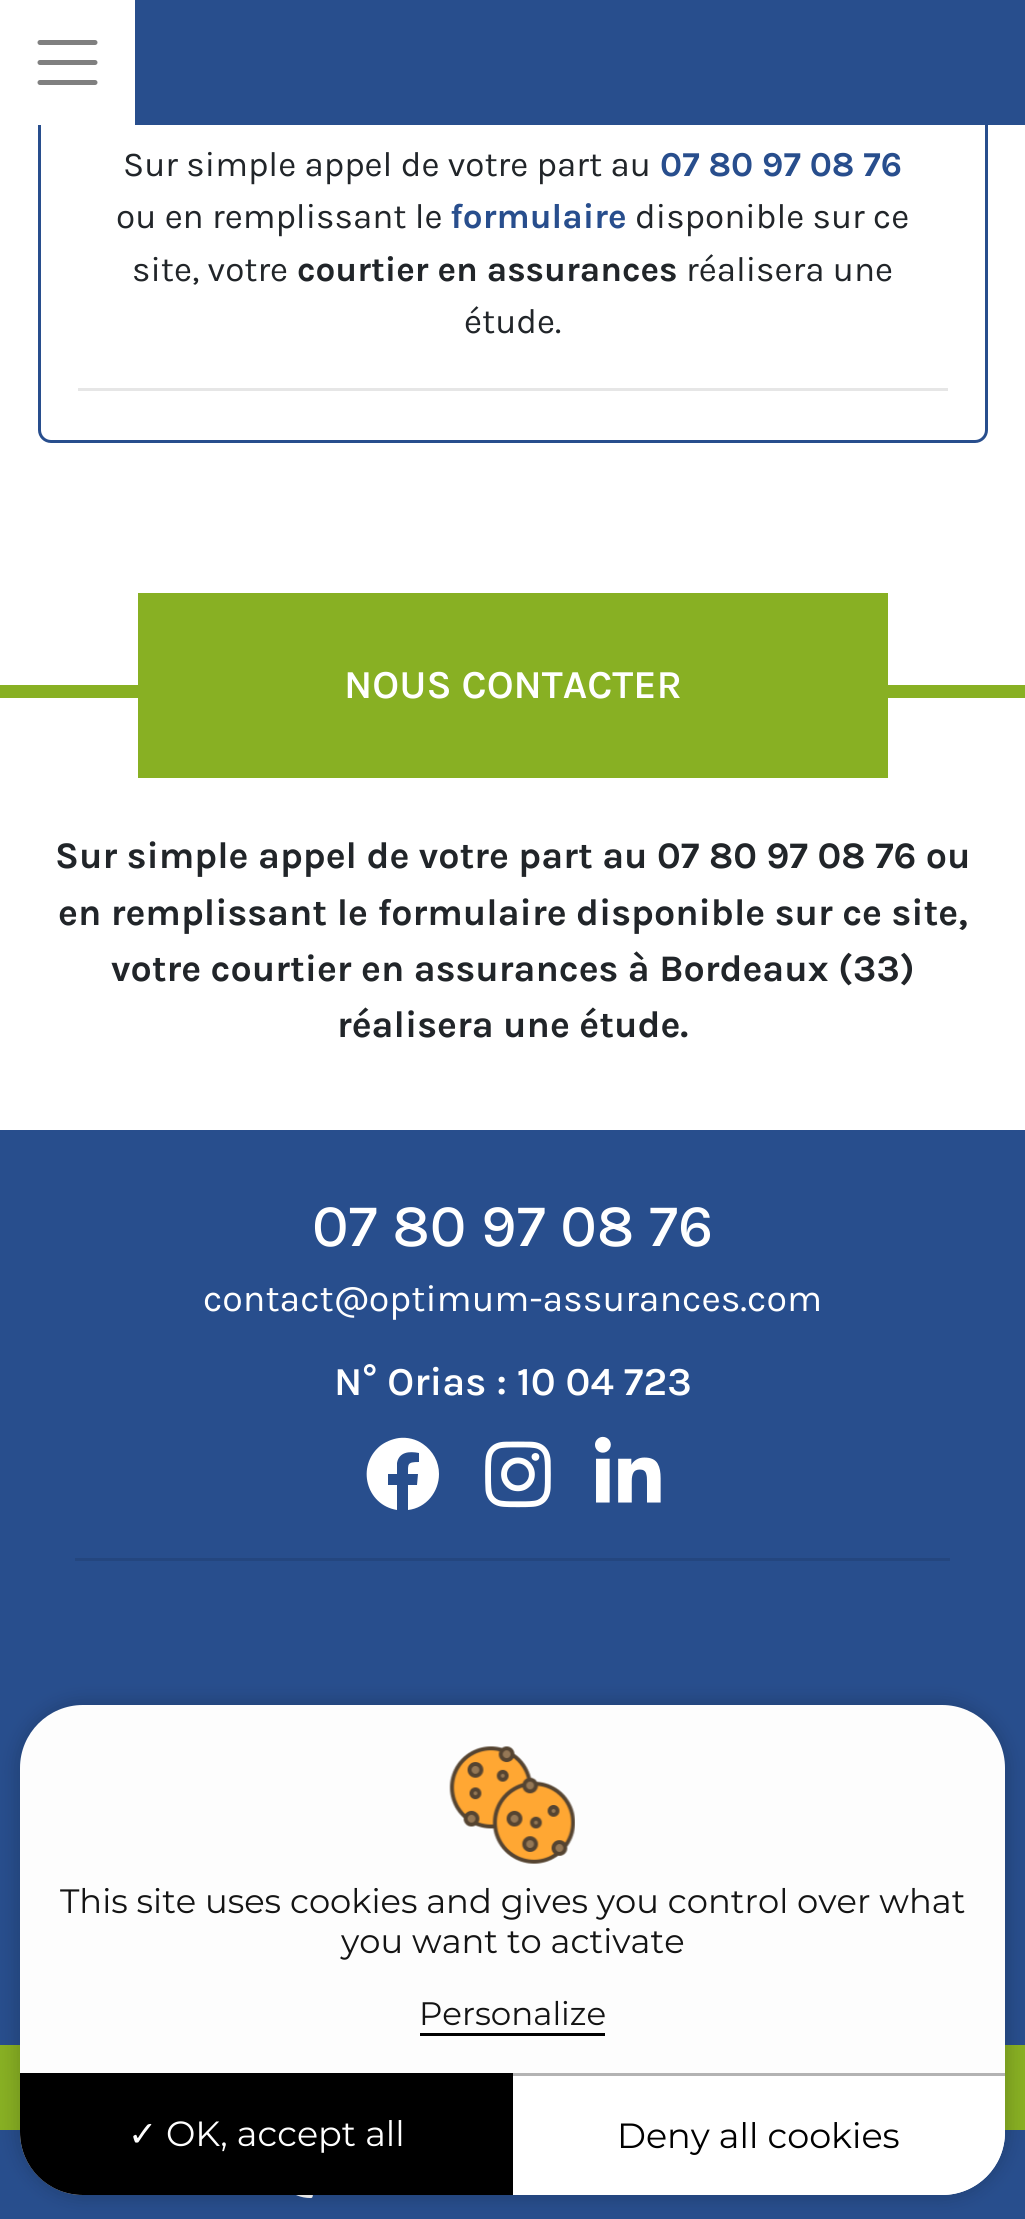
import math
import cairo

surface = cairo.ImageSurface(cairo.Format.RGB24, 1025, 2219)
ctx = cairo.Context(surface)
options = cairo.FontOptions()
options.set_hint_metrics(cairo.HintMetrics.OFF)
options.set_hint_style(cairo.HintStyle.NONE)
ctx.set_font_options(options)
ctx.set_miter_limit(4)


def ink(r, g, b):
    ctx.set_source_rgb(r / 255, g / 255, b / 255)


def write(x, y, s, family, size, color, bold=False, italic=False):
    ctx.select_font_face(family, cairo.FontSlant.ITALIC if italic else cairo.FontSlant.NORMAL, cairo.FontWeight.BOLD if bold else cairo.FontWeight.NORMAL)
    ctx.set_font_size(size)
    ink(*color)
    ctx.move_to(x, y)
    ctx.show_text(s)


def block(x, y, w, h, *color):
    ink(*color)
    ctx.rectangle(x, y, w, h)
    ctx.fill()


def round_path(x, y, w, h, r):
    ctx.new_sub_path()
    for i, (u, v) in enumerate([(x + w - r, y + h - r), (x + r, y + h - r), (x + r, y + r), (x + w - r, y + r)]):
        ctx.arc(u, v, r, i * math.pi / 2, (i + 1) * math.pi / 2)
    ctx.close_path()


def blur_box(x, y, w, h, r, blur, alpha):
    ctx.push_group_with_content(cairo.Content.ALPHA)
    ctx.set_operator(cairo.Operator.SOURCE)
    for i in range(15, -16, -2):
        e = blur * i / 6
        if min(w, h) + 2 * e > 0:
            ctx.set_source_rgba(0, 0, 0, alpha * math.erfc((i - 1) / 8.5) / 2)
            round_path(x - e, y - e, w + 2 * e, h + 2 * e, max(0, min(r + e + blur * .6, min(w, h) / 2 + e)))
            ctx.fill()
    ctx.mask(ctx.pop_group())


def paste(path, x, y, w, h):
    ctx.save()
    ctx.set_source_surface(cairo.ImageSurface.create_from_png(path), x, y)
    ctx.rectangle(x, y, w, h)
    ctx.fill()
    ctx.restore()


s1 = dict(family="Karla", size=35, color=(33, 37, 41))
s2 = dict(family="Karla", size=35, color=(40, 78, 141), bold=True)
s3 = dict(family="Karla", size=35, color=(33, 37, 41), bold=True)
s4 = dict(family="Karla SemiBold", size=40, color=(255, 255, 255))
s5 = dict(family="Karla", size=37.5, color=(33, 37, 41), bold=True)
s6 = dict(family="Karla Medium", size=60, color=(255, 255, 255))
s7 = dict(family="Karla", size=37.5, color=(255, 255, 255))
s8 = dict(family="Montserrat", size=33.75, color=(20, 20, 20))
s9 = dict(family="Montserrat", size=32.5, color=(20, 20, 20))
s10 = dict(family="DejaVu Sans", size=35, color=(255, 255, 255))
s11 = dict(family="Montserrat", size=35, color=(255, 255, 255))
s12 = dict(family="Montserrat", size=35, color=(0, 0, 0))

ink(255, 255, 255)
ctx.paint()
round_path(39.5, -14.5, 947, 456, 11.5)
ink(40, 78, 141)
ctx.set_line_width(3)
ctx.stroke()
block(135, 0, 890, 125, 40, 78, 141)
block(38, 0, 3, 125, 255, 255, 255)
ctx.new_path()
ctx.move_to(40, 42.5)
ctx.line_to(95, 42.5)
ctx.move_to(40, 62.5)
ctx.line_to(95, 62.5)
ctx.move_to(40, 82.5)
ctx.line_to(95, 82.5)
ink(128, 128, 128)
ctx.set_line_width(5)
ctx.set_line_cap(cairo.LineCap.ROUND)
ctx.stroke()
block(78, 388, 870, 3, 230, 230, 230)
write(123, 176, "Sur simple appel de votre part au", **s1)
write(660, 176, "07 80 97 08 76", **s2)
write(116, 228, "ou en remplissant le", **s1)
write(450, 228, "formulaire", **s2)
write(635, 228, "disponible sur ce", **s1)
write(132, 281, "site, votre", **s1)
write(297, 281, "courtier en assurances", **s3)
write(686, 281, "réalisera une", **s1)
write(464, 333, "étude.", **s1)
block(0, 685, 1025, 13, 136, 176, 35)
block(138, 593, 750, 185, 136, 176, 35)
write(344, 698, "NOUS CONTACTER", **s4)
write(55, 868, "Sur simple appel de votre part au 07 80 97 08 76 ou", **s5)
write(58, 925, "en remplissant le formulaire disponible sur ce site,", **s5)
write(111, 981, "votre courtier en assurances à Bordeaux (33)", **s5)
write(337, 1037, "réalisera une étude.", **s5)
block(0, 1130, 1025, 1089, 40, 78, 141)
write(312, 1246, "07 80 97 08 76", **s6)
write(203, 1311, "contact@optimum-assurances.com", **s7)
write(334, 1395, "N° Orias : 10 04 723", **s4)
ctx.new_path()
ctx.move_to(439, 1474)
ctx.curve_to(439, 1492, 426, 1508, 408, 1510)
ctx.line_to(408, 1485)
ctx.line_to(417, 1485)
ctx.line_to(418, 1474)
ctx.line_to(408, 1474)
ctx.curve_to(408, 1464, 407, 1462, 419, 1462)
ctx.line_to(419, 1453)
ctx.curve_to(409, 1451, 399, 1452, 397, 1463)
ctx.line_to(397, 1474)
ctx.line_to(388, 1474)
ctx.line_to(388, 1485)
ctx.line_to(397, 1485)
ctx.line_to(397, 1510)
ctx.curve_to(366, 1505, 356, 1466, 380, 1446)
ctx.curve_to(385, 1442, 392, 1439, 399, 1438)
ctx.curve_to(407, 1437, 416, 1439, 423, 1444)
ctx.curve_to(433, 1451, 439, 1462, 439, 1474)
ctx.close_path()
ctx.fill()
paste("pic1.png", 485, 1441, 66, 67)
paste("pic2.png", 595, 1436, 66, 67)
block(75, 1558, 875, 3, 36, 70, 127)
block(0, 2045, 1025, 85, 136, 176, 35)
paste("pic4.png", 296, 2195, 17, 4)
ink(0, 0, 0)
blur_box(15, 1700, 995, 500, 68, 9, 0.15)
ink(253, 253, 253)
round_path(20, 1705, 985, 490, 63)
ctx.fill()
paste("pic3.png", 449, 1746, 126, 118)
write(60, 1913, "This site uses cookies and gives you control over what", **s8)
write(341, 1953, "you want to activate", **s8)
block(420, 2033, 185, 3, 0, 0, 0)
write(419, 2025, "Personalize", **s9)
ink(0, 0, 0)
ctx.new_path()
ctx.move_to(20, 2073)
ctx.line_to(513, 2073)
ctx.line_to(513, 2195)
ctx.line_to(83, 2195)
ctx.curve_to(48, 2195, 20, 2167, 20, 2132)
ctx.close_path()
ctx.fill()
write(128, 2146, "✓", **s10)
write(166, 2146, "OK, accept all", **s11)
ctx.new_path()
ctx.move_to(513, 2073)
ctx.line_to(1005, 2073)
ctx.line_to(1005, 2132)
ctx.curve_to(1005, 2167, 977, 2195, 942, 2195)
ctx.line_to(513, 2195)
ctx.close_path()
ctx.fill()
block(513, 2073, 492, 3, 179, 179, 179)
write(617, 2148, "Deny all cookies", **s12)
surface.write_to_png("screenshot.png")
